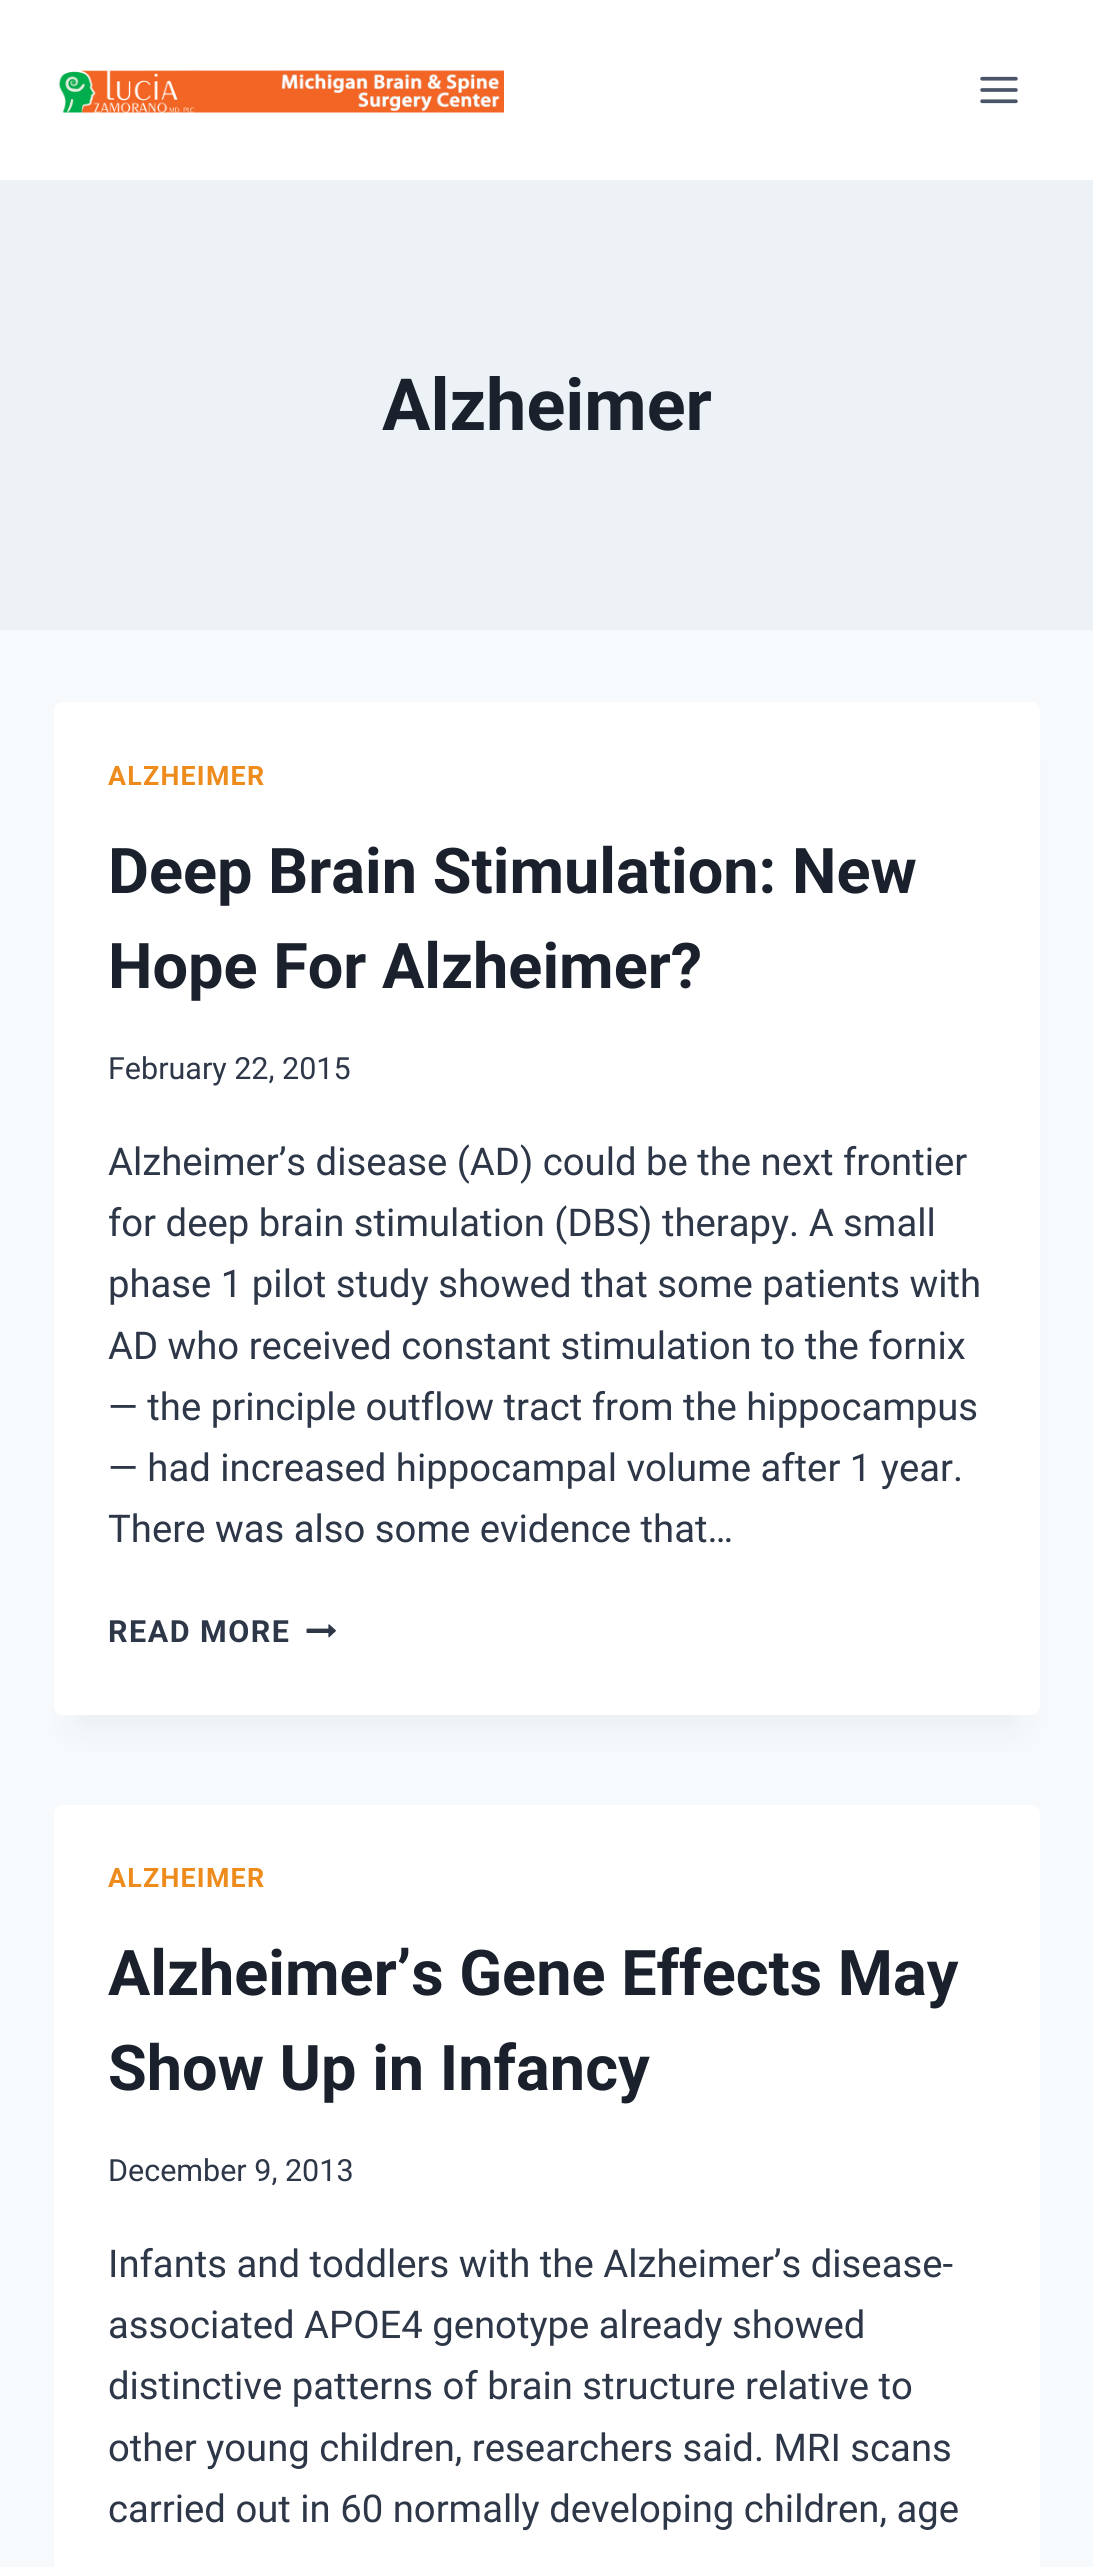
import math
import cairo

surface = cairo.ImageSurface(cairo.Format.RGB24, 1093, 2567)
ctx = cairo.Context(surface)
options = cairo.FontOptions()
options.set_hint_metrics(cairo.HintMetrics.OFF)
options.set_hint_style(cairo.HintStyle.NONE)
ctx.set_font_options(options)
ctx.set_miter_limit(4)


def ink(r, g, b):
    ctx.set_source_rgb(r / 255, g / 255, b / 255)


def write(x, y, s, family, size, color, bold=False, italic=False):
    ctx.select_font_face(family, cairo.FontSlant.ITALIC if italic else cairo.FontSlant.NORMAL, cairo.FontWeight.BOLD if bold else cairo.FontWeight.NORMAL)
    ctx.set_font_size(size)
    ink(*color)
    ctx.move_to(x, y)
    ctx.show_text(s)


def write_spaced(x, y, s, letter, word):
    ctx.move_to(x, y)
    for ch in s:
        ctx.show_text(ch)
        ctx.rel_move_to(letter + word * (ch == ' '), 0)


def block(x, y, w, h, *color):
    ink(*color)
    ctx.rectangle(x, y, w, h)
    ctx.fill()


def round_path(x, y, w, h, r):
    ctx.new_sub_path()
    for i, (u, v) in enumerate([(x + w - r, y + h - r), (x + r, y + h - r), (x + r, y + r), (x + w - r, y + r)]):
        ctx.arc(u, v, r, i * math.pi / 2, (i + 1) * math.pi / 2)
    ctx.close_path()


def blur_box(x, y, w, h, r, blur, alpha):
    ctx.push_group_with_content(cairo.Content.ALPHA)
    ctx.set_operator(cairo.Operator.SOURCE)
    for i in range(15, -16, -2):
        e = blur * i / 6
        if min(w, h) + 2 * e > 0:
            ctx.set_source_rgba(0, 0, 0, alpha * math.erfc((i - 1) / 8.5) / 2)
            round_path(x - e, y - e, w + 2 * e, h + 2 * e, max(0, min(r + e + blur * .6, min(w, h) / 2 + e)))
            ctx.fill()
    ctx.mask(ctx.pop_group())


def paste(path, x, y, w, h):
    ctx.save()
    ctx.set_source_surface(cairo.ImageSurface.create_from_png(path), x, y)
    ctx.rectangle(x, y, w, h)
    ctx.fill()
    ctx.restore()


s1 = dict(family="Roboto", size=72, color=(26, 32, 44), bold=True)
s2 = dict(family="Roboto", size=63, color=(26, 32, 44), bold=True)
s3 = dict(family="Roboto", size=30.5, color=(45, 55, 72))
s4 = dict(family="Roboto", size=38.25, color=(45, 55, 72))

ink(247, 250, 252)
ctx.paint()
block(0, 0, 1093, 180, 255, 255, 255)
paste("pic1.png", 58, 70, 446, 43)
paste("pic2.png", 980, 76, 38, 28)
block(0, 180, 1093, 450, 237, 242, 247)
write(382, 430, "Alzheimer", **s1)
ink(0, 0, 0)
blur_box(77, 758, 940, 968, 0, 17, 0.05)
ink(255, 255, 255)
round_path(54, 702, 986, 1013, 9)
ctx.fill()
ctx.set_font_size(26.75)
ink(238, 139, 29)
write_spaced(108, 785, "ALZHEIMER", 1.25, 0)
write(108, 893, "Deep Brain Stimulation: New", **s2)
write(108, 988, "Hope For Alzheimer?", **s2)
write(108, 1079, "February 22, 2015", **s3)
write(108, 1175, "Alzheimer’s disease (AD) could be the next frontier", **s4)
write(108, 1236, "for deep brain stimulation (DBS) therapy. A small", **s4)
write(108, 1297, "phase 1 pilot study showed that some patients with", **s4)
write(108, 1359, "AD who received constant stimulation to the fornix", **s4)
write(108, 1420, "— the principle outflow tract from the hippocampus", **s4)
write(108, 1481, "— had increased hippocampal volume after 1 year.", **s4)
write(108, 1542, "There was also some evidence that…", **s4)
ctx.select_font_face("Roboto", cairo.FontSlant.NORMAL, cairo.FontWeight.BOLD)
ctx.set_font_size(30.5)
write_spaced(108, 1642, "READ MORE", 1.5, 0)
paste("pic3.png", 306, 1624, 30, 14)
ink(255, 255, 255)
round_path(54, 1805, 986, 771, 9)
ctx.fill()
ctx.set_font_size(26.75)
ink(238, 139, 29)
write_spaced(108, 1887, "ALZHEIMER", 1.25, 0)
write(108, 1995, "Alzheimer’s Gene Effects May", **s2)
write(108, 2090, "Show Up in Infancy", **s2)
write(108, 2181, "December 9, 2013", **s3)
write(108, 2277, "Infants and toddlers with the Alzheimer’s disease-", **s4)
write(108, 2338, "associated APOE4 genotype already showed", **s4)
write(108, 2399, "distinctive patterns of brain structure relative to", **s4)
write(108, 2461, "other young children, researchers said. MRI scans", **s4)
write(108, 2522, "carried out in 60 normally developing children, age", **s4)
surface.write_to_png("screenshot.png")
